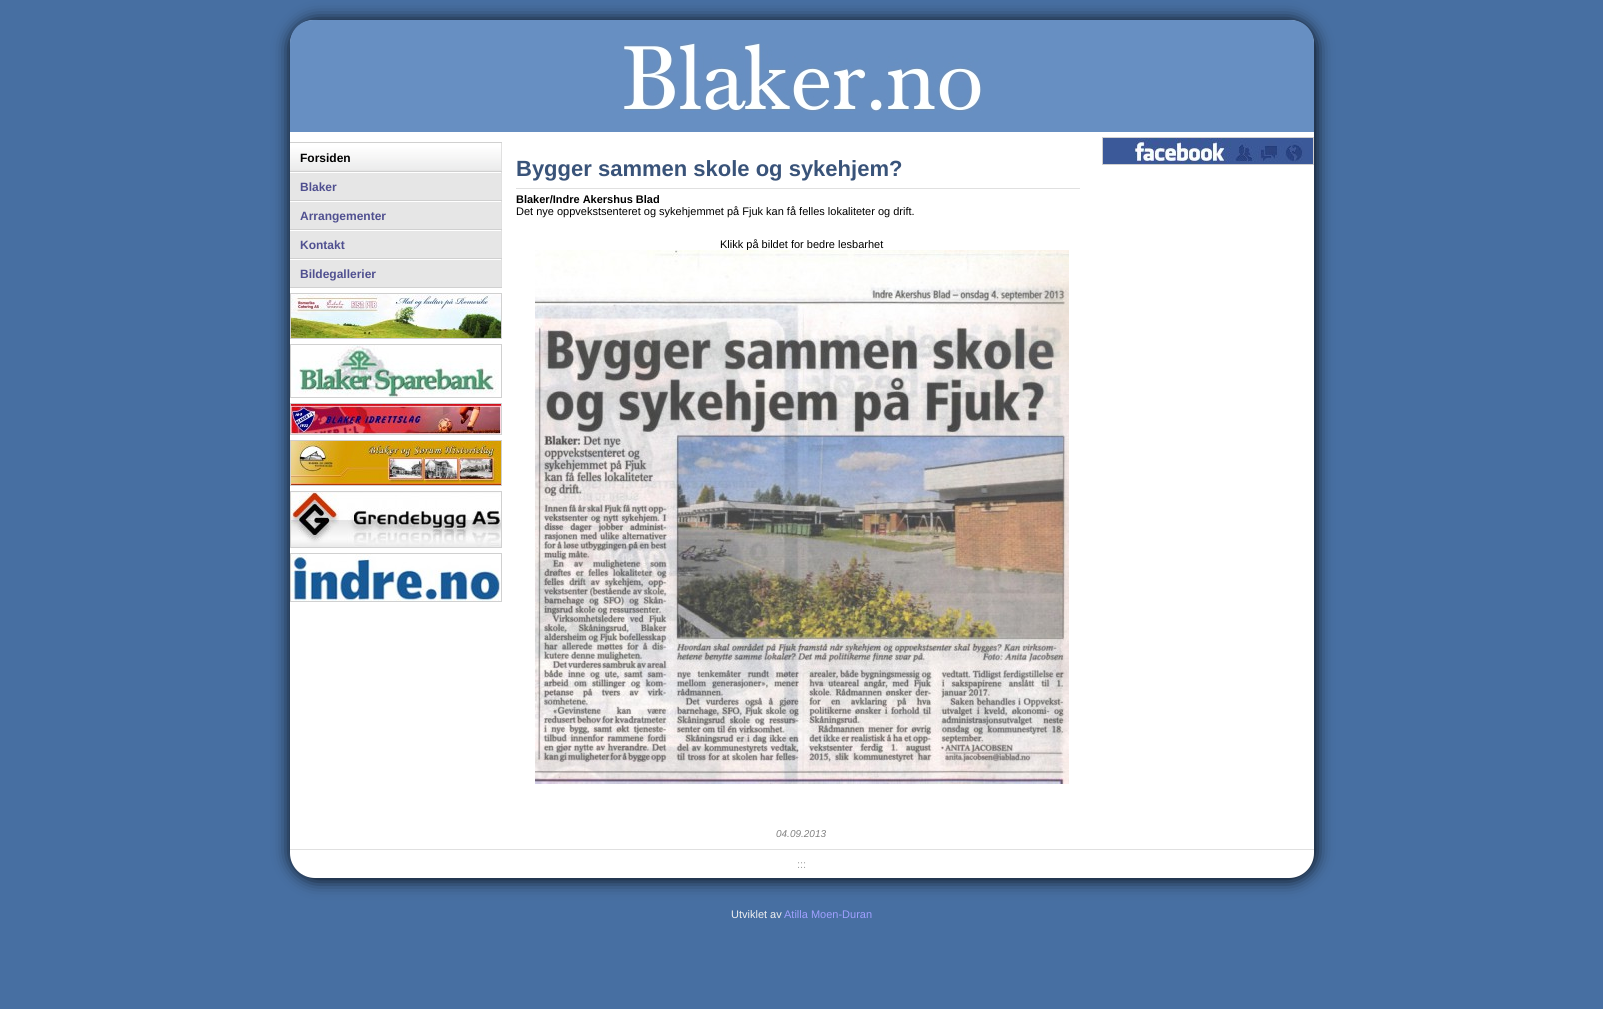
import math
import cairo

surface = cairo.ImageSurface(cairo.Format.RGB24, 1603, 1009)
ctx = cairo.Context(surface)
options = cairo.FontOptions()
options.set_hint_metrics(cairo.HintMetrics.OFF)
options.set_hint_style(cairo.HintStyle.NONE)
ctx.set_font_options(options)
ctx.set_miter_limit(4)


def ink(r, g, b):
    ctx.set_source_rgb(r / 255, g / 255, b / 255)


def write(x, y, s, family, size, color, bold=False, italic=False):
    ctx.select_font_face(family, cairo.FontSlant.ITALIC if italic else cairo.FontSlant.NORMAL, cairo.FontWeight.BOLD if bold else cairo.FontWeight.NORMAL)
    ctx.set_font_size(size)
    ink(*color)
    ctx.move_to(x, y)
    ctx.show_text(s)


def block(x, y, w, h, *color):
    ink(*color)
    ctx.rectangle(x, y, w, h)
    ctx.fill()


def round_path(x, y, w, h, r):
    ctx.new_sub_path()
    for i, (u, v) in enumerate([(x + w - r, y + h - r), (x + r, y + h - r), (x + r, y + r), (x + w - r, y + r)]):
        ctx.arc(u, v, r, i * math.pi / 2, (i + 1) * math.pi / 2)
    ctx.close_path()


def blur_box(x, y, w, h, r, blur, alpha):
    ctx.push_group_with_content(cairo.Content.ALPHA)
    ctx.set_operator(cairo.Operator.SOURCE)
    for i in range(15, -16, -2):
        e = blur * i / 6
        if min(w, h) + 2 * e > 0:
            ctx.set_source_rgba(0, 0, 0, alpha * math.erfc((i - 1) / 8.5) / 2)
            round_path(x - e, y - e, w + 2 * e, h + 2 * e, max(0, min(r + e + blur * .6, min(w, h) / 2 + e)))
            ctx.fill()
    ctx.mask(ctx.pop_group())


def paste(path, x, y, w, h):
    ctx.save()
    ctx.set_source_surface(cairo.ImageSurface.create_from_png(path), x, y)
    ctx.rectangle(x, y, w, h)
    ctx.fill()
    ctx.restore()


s1 = dict(family="Liberation Sans", size=12, color=(0, 0, 0), bold=True)
s2 = dict(family="Liberation Sans", size=12, color=(80, 80, 144), bold=True)
s3 = dict(family="Liberation Sans", size=22, color=(57, 83, 121), bold=True)
s4 = dict(family="Liberation Sans", size=11, color=(0, 0, 0), bold=True)
s5 = dict(family="Liberation Sans", size=11, color=(0, 0, 0))
s6 = dict(family="Liberation Sans", size=10, color=(128, 128, 128), italic=True)
s7 = dict(family="Liberation Sans", size=11, color=(160, 160, 160))
s8 = dict(family="Liberation Sans", size=11, color=(240, 240, 240))
s9 = dict(family="Liberation Sans", size=11, color=(160, 160, 255))

ink(71, 111, 162)
ctx.paint()
ink(0, 0, 0)
blur_box(291, 21, 1024, 858, 25, 8.5, 1)
ink(255, 255, 255)
round_path(290, 20, 1024, 858, 25)
ctx.fill()
ink(103, 143, 194)
ctx.new_path()
ctx.move_to(313, 20)
ctx.line_to(1291, 20)
ctx.curve_to(1303.5, 20, 1314, 30.5, 1314, 43)
ctx.line_to(1314, 132)
ctx.line_to(290, 132)
ctx.line_to(290, 43)
ctx.curve_to(290, 30.5, 300.5, 20, 313, 20)
ctx.close_path()
ctx.fill()
paste("pic1.png", 623, 43, 359, 69)
block(290, 142, 212, 1, 208, 208, 208)
block(290, 170, 211, 1, 230, 230, 230)
block(501, 143, 1, 145, 224, 224, 224)
block(290, 171, 212, 1, 208, 208, 208)
paste("pic2.png", 290, 144, 211, 26)
write(300, 162, "Forsiden", **s1)
block(290, 173, 211, 27, 230, 230, 230)
block(290, 200, 212, 1, 208, 208, 208)
write(300, 191, "Blaker", **s2)
block(290, 202, 211, 27, 230, 230, 230)
block(290, 229, 212, 1, 208, 208, 208)
write(300, 220, "Arrangementer", **s2)
block(290, 231, 211, 27, 230, 230, 230)
block(290, 258, 212, 1, 208, 208, 208)
write(300, 249, "Kontakt", **s2)
block(290, 260, 211, 27, 230, 230, 230)
block(290, 287, 212, 1, 208, 208, 208)
write(300, 278, "Bildegallerier", **s2)
ctx.rectangle(290.5, 293.5, 211, 45)
ink(208, 208, 208)
ctx.set_line_width(1)
ctx.stroke()
paste("pic3.png", 291, 294, 210, 44)
ctx.rectangle(290.5, 344.5, 211, 53)
ctx.stroke()
paste("pic4.png", 291, 345, 210, 52)
ctx.rectangle(290.5, 403.5, 211, 31)
ctx.stroke()
paste("pic5.png", 291, 404, 210, 30)
ctx.rectangle(290.5, 440.5, 211, 45)
ctx.stroke()
paste("pic6.png", 291, 441, 210, 44)
ctx.rectangle(290.5, 491.5, 211, 56)
ctx.stroke()
paste("pic7.png", 291, 492, 210, 55)
ctx.rectangle(290.5, 553.5, 211, 48)
ctx.stroke()
paste("pic8.png", 291, 554, 210, 47)
block(516, 188, 564, 1, 224, 224, 224)
write(516, 176, "Bygger sammen skole og sykehjem?", **s3)
write(516, 203, "Blaker/Indre Akershus Blad", **s4)
write(516, 215, "Det nye oppvekstsenteret og sykehjemmet på Fjuk kan få felles lokaliteter og drift.", **s5)
write(720, 248, "Klikk på bildet for bedre lesbarhet", **s5)
paste("pic9.png", 535, 250, 534, 534)
write(776, 837, "04.09.2013", **s6)
ctx.rectangle(1102.5, 137.5, 211, 27)
ink(208, 208, 208)
ctx.stroke()
paste("pic10.png", 1103, 138, 210, 26)
block(290, 849, 1024, 1, 224, 224, 224)
write(797, 868, ":::", **s7)
write(731, 918, "Utviklet av", **s8)
write(784, 918, "Atilla Moen-Duran", **s9)
surface.write_to_png("screenshot.png")
